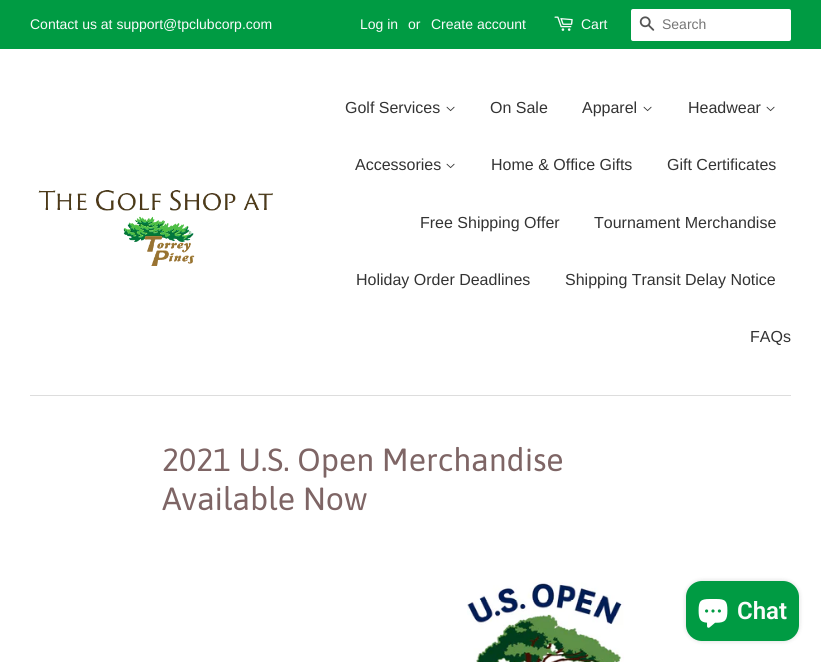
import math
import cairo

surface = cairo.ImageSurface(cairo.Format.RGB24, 821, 662)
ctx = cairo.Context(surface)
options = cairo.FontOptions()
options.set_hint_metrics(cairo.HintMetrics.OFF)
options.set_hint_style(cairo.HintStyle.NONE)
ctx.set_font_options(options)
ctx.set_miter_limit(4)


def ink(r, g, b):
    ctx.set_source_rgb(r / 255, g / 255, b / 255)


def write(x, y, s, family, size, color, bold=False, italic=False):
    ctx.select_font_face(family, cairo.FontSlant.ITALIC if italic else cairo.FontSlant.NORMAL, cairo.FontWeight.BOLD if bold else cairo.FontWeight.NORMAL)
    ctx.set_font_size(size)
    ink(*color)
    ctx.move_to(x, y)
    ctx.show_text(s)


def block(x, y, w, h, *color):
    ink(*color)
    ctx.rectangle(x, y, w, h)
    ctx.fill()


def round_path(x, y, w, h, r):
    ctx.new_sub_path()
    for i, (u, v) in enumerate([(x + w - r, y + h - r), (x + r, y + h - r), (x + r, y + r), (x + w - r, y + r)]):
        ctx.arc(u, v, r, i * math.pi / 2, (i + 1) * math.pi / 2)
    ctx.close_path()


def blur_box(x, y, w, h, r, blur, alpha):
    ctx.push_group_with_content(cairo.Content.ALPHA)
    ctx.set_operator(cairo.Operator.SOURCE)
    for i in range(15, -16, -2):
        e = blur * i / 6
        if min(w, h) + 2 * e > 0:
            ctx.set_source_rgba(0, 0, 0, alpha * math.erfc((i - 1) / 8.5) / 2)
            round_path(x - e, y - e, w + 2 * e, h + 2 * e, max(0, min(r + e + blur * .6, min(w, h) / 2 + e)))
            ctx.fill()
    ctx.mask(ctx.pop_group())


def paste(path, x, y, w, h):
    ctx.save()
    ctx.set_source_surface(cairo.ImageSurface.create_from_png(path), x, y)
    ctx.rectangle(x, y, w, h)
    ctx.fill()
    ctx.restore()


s1 = dict(family="Liberation Sans", size=14, color=(251, 251, 251))
s2 = dict(family="Liberation Sans", size=14, color=(117, 117, 117))
s3 = dict(family="Liberation Sans", size=16, color=(51, 51, 51))
s4 = dict(family="Asap", size=32, color=(126, 101, 101))
s5 = dict(family="Roboto SemiBold", size=24, color=(251, 251, 251))

ink(255, 255, 255)
ctx.paint()
block(0, 0, 821, 49, 0, 155, 67)
write(30, 29, "Contact us at support@tpclubcorp.com", **s1)
write(360, 29, "Log in", **s1)
write(408, 29, "or", **s1)
write(431, 29, "Create account", **s1)
paste("pic1.png", 554, 16, 19, 15)
write(581, 29, "Cart", **s1)
ink(255, 255, 255)
round_path(631, 9, 160, 32, 2)
ctx.fill()
paste("pic2.png", 639, 16, 16, 15)
write(662, 29, "Search", **s2)
block(30, 395, 761, 1, 221, 221, 221)
paste("pic3.png", 38, 190, 235, 76)
write(345, 113, "Golf Services", **s3)
paste("pic4.png", 446, 106, 9, 6)
write(490, 113, "On Sale", **s3)
write(582, 113, "Apparel", **s3)
paste("pic4.png", 643, 106, 9, 6)
write(688, 113, "Headwear", **s3)
paste("pic4.png", 766, 106, 9, 6)
write(355, 170, "Accessories", **s3)
paste("pic4.png", 446, 163, 9, 6)
write(491, 170, "Home & Office Gifts", **s3)
write(667, 170, "Gift Certificates", **s3)
write(420, 228, "Free Shipping Offer", **s3)
write(594, 228, "Tournament Merchandise", **s3)
write(356, 285, "Holiday Order Deadlines", **s3)
write(565, 285, "Shipping Transit Delay Notice", **s3)
write(750, 342, "FAQs", **s3)
write(162, 471, "2021 U.S. Open Merchandise", **s4)
write(162, 510, "Available Now", **s4)
paste("pic5.png", 467, 582, 157, 80)
ink(0, 0, 0)
blur_box(686, 581, 113, 60, 16, 2.5, 0.15)
ink(0, 155, 67)
round_path(686, 581, 113, 60, 16)
ctx.fill()
paste("pic6.png", 698, 599, 30, 29)
write(737, 619, "Chat", **s5)
surface.write_to_png("screenshot.png")
